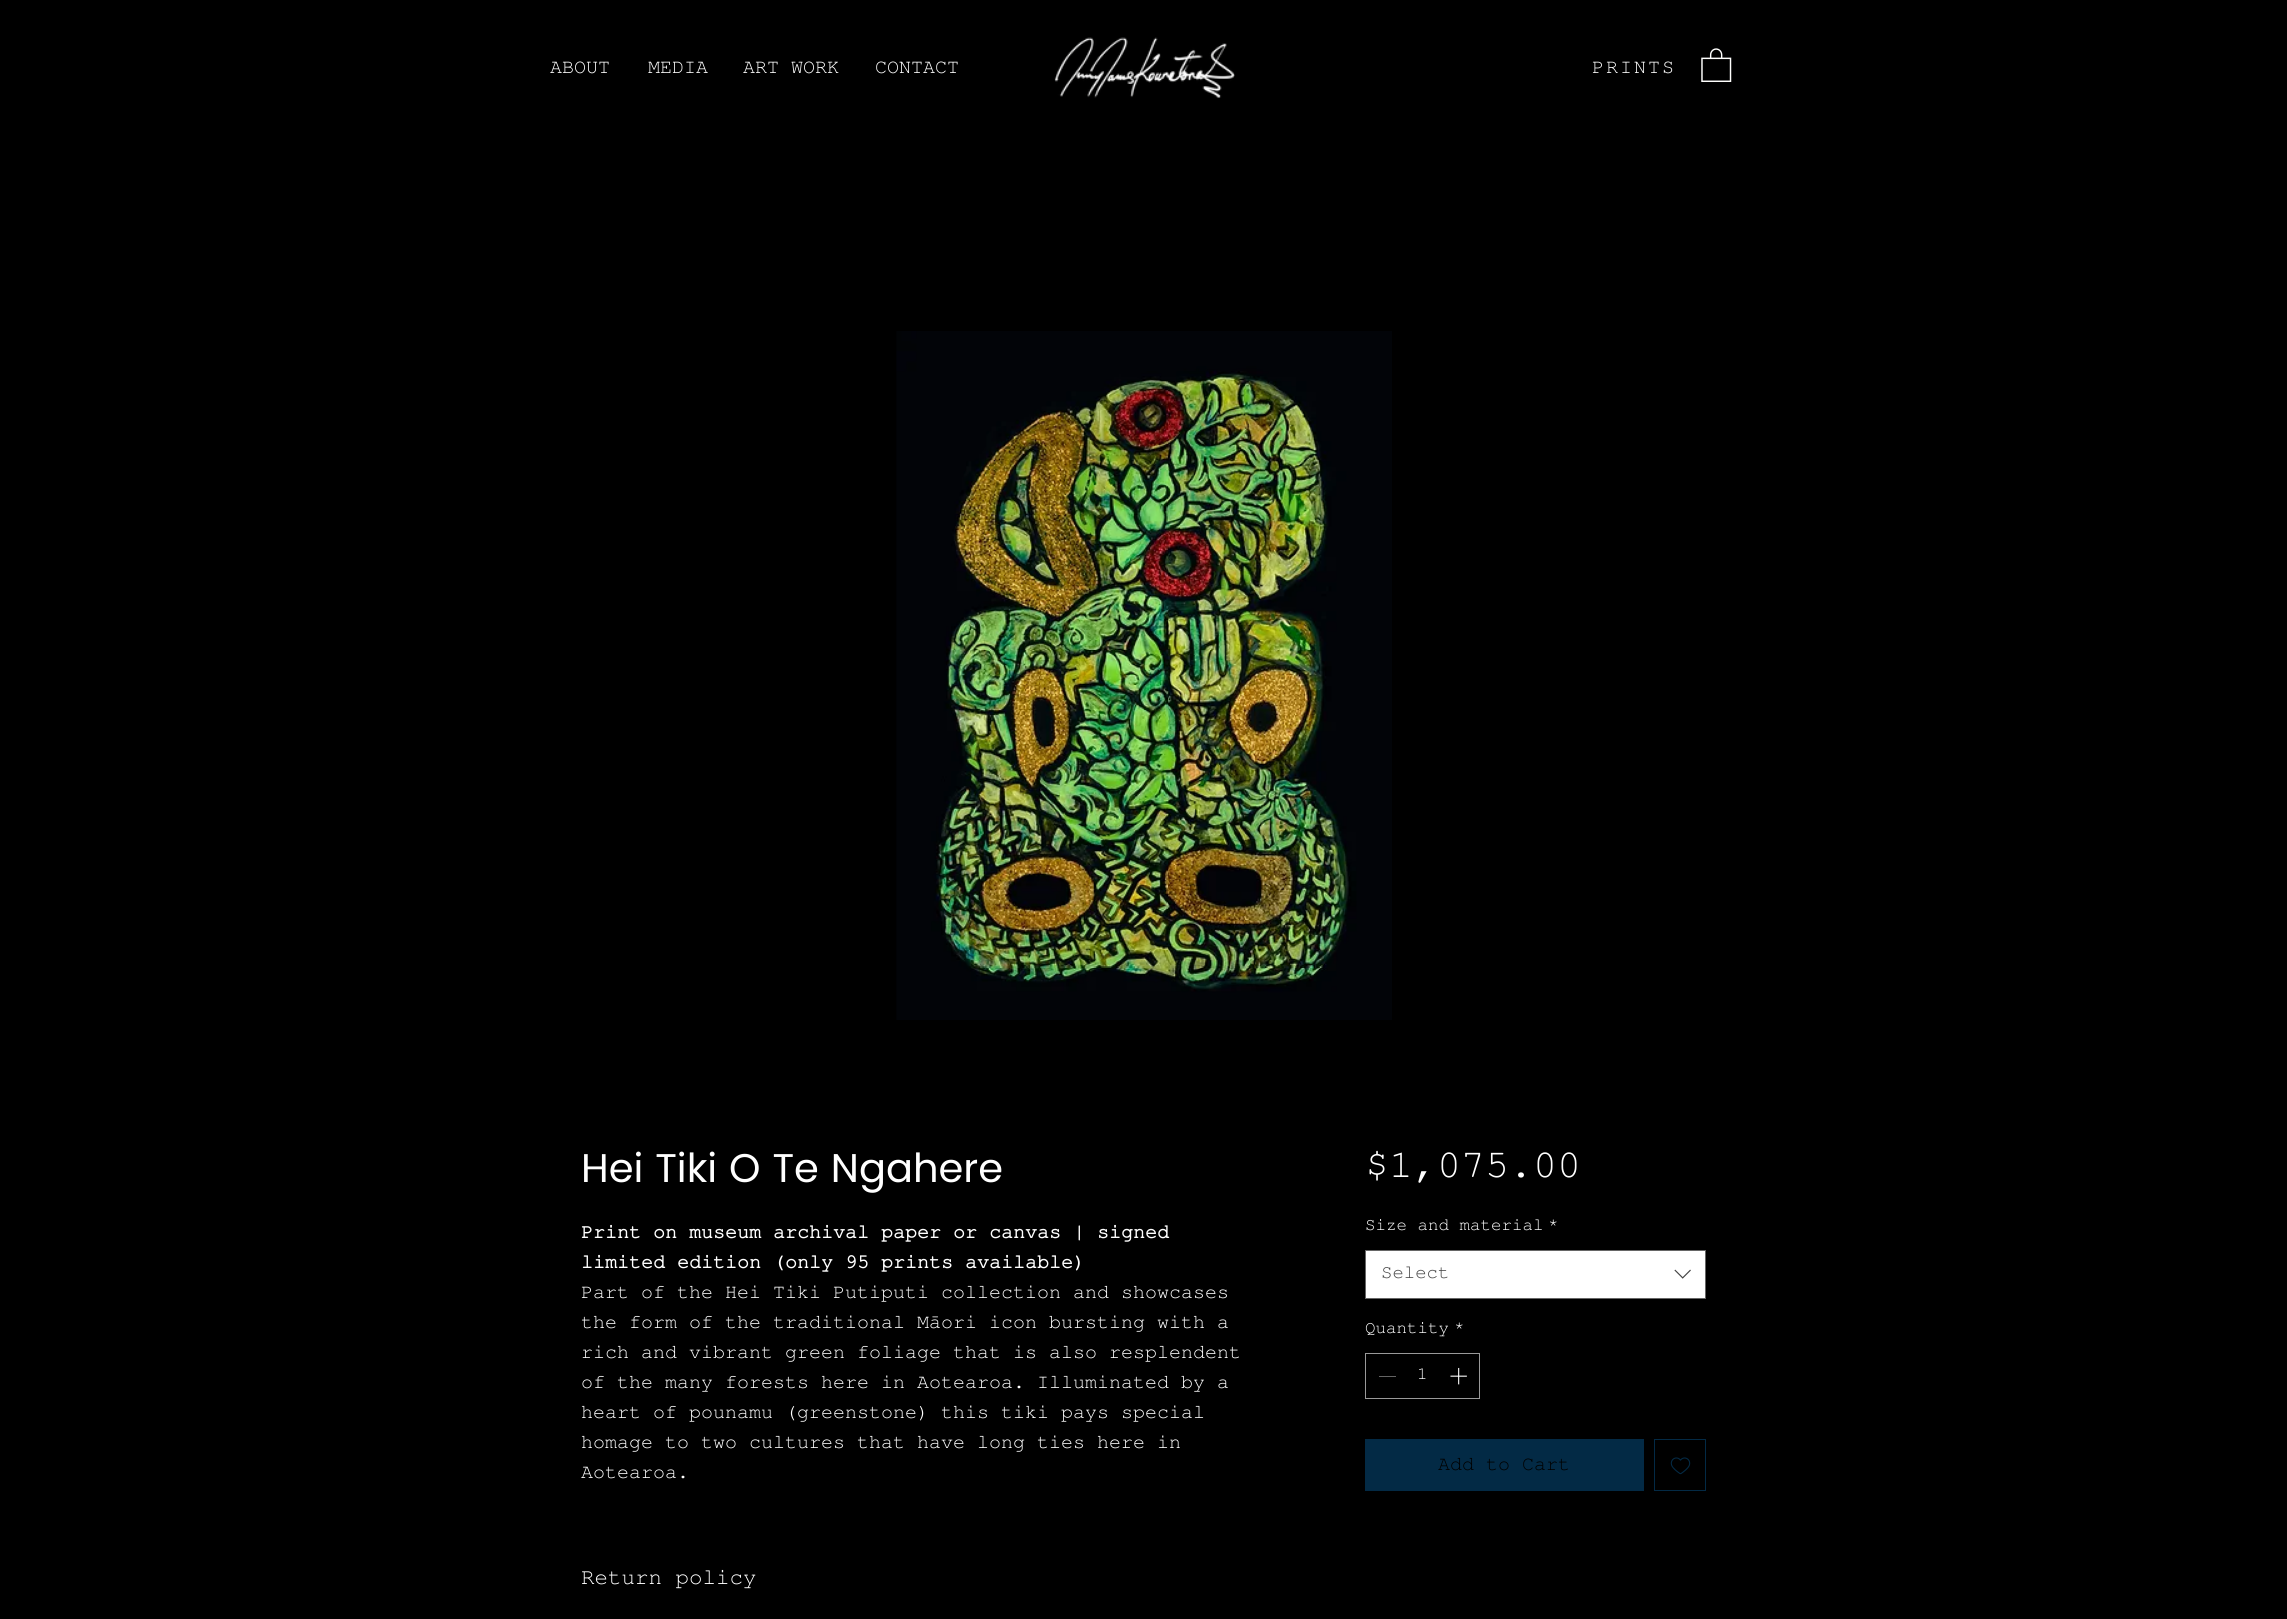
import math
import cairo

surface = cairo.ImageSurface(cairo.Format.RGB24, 2287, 1619)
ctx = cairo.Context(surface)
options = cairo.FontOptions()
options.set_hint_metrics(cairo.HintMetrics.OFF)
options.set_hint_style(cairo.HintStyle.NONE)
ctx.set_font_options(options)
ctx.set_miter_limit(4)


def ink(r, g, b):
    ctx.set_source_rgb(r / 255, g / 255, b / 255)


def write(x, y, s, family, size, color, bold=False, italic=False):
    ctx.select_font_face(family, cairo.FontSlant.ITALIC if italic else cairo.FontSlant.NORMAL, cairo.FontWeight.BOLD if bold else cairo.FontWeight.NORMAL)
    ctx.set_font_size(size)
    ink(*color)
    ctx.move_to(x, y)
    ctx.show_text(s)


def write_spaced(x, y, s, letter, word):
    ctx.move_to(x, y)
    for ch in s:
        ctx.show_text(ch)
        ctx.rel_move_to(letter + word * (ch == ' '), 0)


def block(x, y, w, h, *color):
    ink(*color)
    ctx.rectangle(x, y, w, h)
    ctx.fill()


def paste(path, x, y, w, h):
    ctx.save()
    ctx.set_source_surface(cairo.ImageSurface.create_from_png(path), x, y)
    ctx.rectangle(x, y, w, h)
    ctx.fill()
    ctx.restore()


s1 = dict(family="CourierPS", size=20, color=(255, 255, 255))
s2 = dict(family="Poppins", size=40, color=(255, 255, 255))
s3 = dict(family="CourierPS", size=20, color=(255, 255, 255), bold=True)
s4 = dict(family="CourierPS", size=22.5, color=(255, 255, 255))
s5 = dict(family="CourierPS", size=40, color=(255, 255, 255))
s6 = dict(family="CourierPS", size=17.5, color=(255, 255, 255))
s7 = dict(family="CourierPS", size=19, color=(68, 68, 68))
s8 = dict(family="CourierPS", size=20, color=(0, 0, 0))

ink(0, 0, 0)
ctx.paint()
write(550, 73, "ABOUT", **s1)
write(648, 73, "MEDIA", **s1)
write(743, 73, "ART WORK", **s1)
write(875, 73, "CONTACT", **s1)
paste("pic1.png", 1054, 37, 181, 62)
write_spaced(1592, 73, "PRINTS", 2, 0)
paste("pic2.png", 1701, 48, 31, 34)
paste("pic3.png", 896, 331, 496, 689)
write(581, 1182, "Hei Tiki O Te Ngahere", **s2)
write(581, 1238, "Print on museum archival paper or canvas | signed", **s3)
write(581, 1268, "limited edition (only 95 prints available)", **s3)
write(581, 1298, "Part of the Hei Tiki Putiputi collection and showcases", **s1)
write(581, 1328, "the form of the traditional Māori icon bursting with a", **s1)
write(581, 1358, "rich and vibrant green foliage that is also resplendent", **s1)
write(581, 1388, "of the many forests here in Aotearoa. Illuminated by a", **s1)
write(581, 1418, "heart of pounamu (greenstone) this tiki pays special", **s1)
write(581, 1448, "homage to two cultures that have long ties here in", **s1)
write(581, 1478, "Aotearoa.", **s1)
write(581, 1584, "Return policy", **s4)
write(1365, 1177, "$1,075.00", **s5)
write(1365, 1230, "Size and material", **s6)
write(1548, 1230, "*", **s6)
ctx.rectangle(1365.5, 1250.5, 340, 48)
ctx.fill_preserve()
ink(102, 102, 102)
ctx.set_line_width(1)
ctx.stroke()
write(1381, 1278, "Select", **s7)
paste("pic4.png", 1674, 1269, 17, 10)
write(1365, 1333, "Quantity", **s6)
write(1454, 1333, "*", **s6)
ctx.rectangle(1365.5, 1353.5, 114, 45)
ink(153, 153, 153)
ctx.stroke()
block(1379, 1376, 17, 1, 100, 100, 100)
write(1417, 1379, "1", **s6)
paste("pic5.png", 1450, 1367, 17, 18)
block(1365, 1439, 279, 52, 3, 42, 69)
write(1438, 1470, "Add to Cart", **s8)
ctx.rectangle(1654.5, 1439.5, 51, 51)
ink(3, 42, 69)
ctx.stroke()
paste("pic6.png", 1670, 1457, 21, 18)
surface.write_to_png("screenshot.png")
